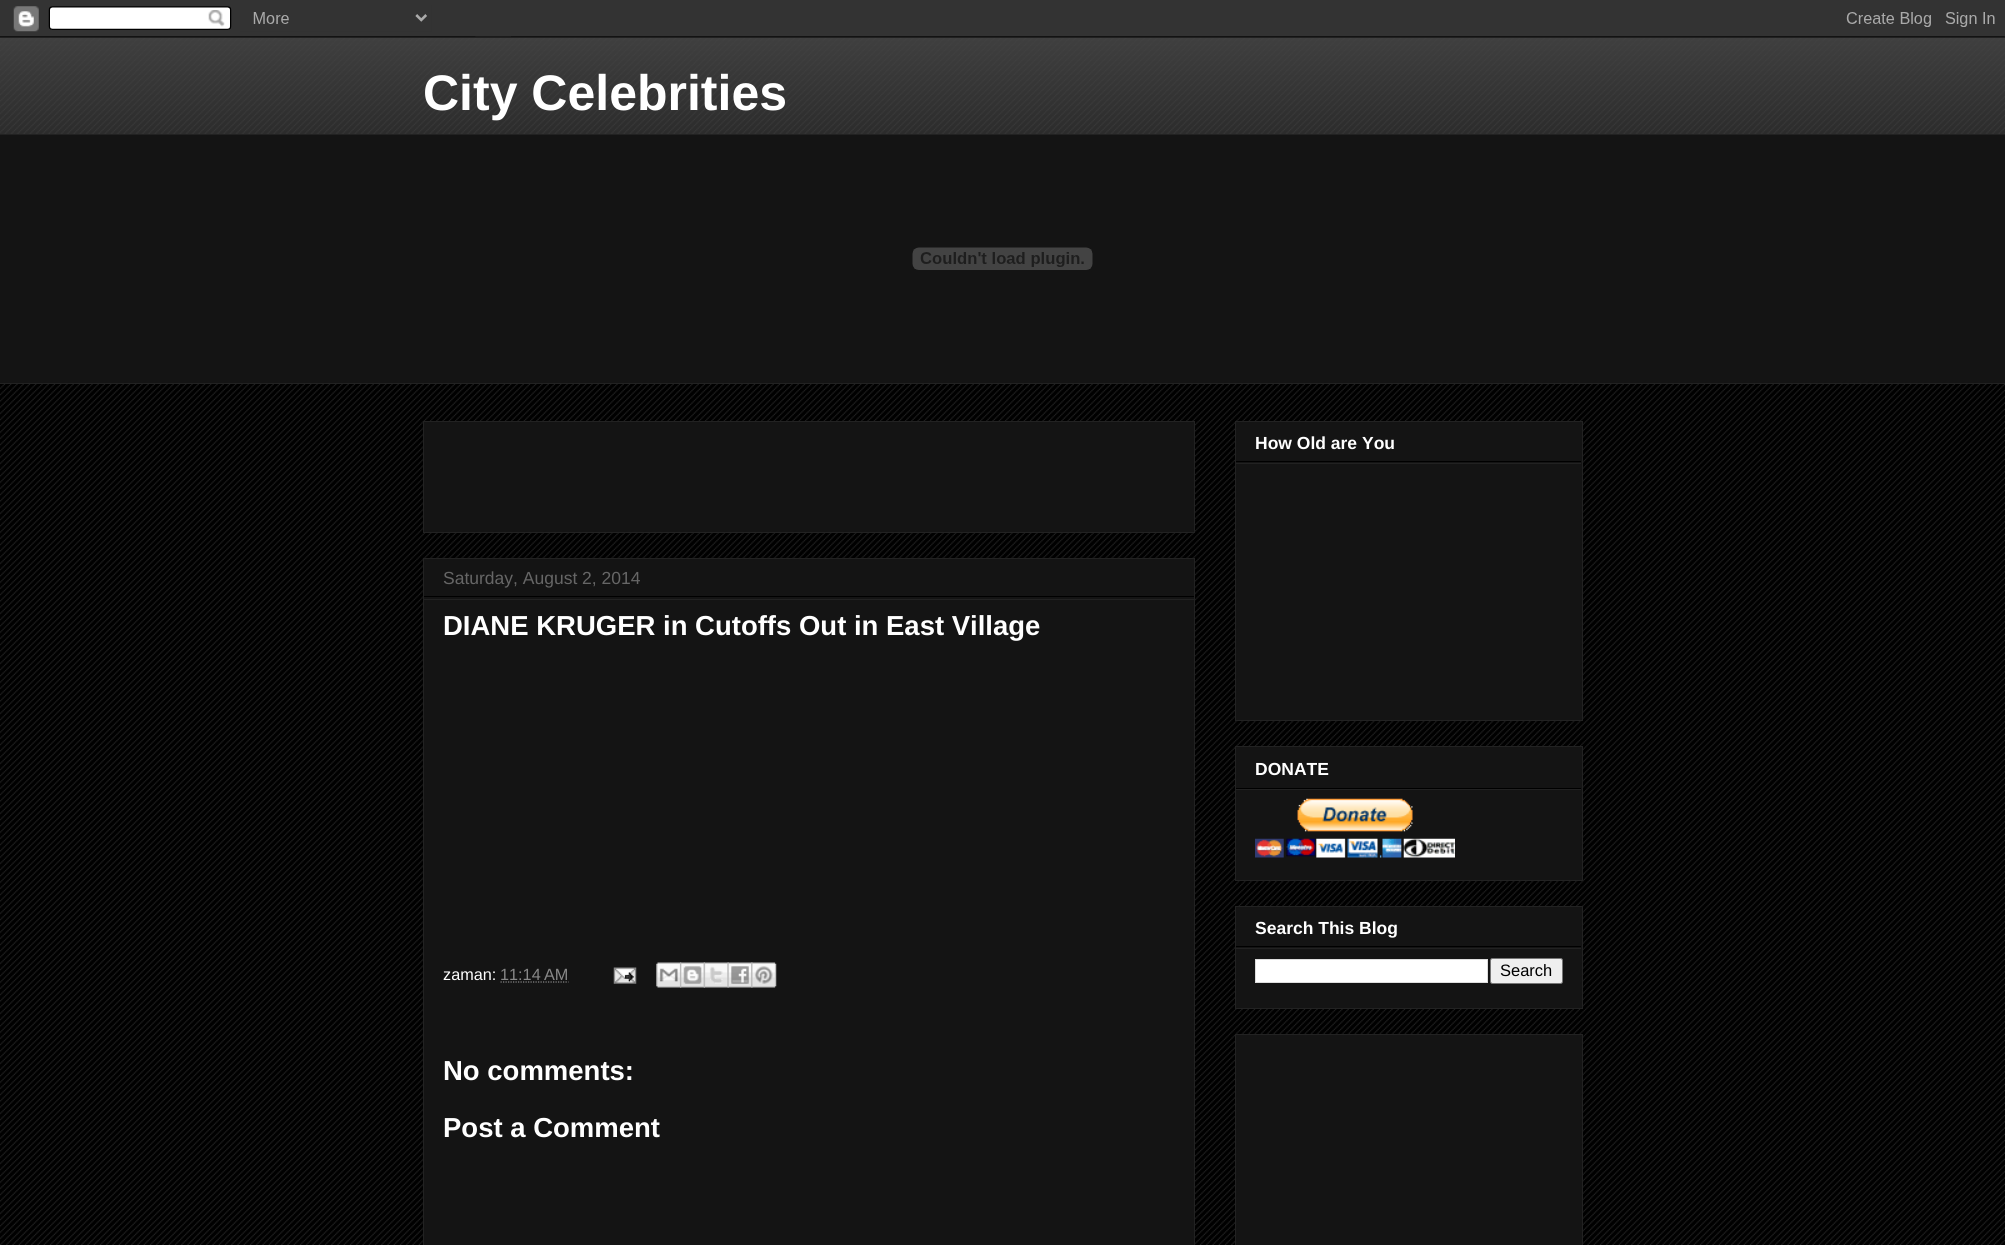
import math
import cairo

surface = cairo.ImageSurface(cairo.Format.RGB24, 2005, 1245)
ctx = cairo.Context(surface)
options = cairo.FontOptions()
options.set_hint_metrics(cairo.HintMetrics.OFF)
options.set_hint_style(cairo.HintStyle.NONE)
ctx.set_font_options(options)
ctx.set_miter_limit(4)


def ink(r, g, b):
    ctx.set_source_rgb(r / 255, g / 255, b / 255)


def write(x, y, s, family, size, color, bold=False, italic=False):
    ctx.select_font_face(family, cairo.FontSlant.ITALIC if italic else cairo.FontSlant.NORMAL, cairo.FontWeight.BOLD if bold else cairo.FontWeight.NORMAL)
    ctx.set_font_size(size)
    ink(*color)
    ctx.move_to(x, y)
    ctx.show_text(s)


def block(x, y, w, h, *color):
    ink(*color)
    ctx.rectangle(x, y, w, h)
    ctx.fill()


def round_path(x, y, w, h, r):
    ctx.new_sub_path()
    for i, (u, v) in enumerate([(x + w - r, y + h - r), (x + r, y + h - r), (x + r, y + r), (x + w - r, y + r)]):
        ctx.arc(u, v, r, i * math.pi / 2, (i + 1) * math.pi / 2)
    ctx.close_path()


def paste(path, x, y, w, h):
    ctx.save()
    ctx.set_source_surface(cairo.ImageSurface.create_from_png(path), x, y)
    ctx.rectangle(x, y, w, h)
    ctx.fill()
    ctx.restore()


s1 = dict(family="Liberation Sans", size=50, color=(255, 255, 255), bold=True)
s2 = dict(family="Liberation Sans", size=17.5, color=(102, 102, 102))
s3 = dict(family="Liberation Sans", size=27.5, color=(255, 255, 255), bold=True)
s4 = dict(family="Liberation Sans", size=16.25, color=(255, 255, 255))
s5 = dict(family="Liberation Sans", size=16.25, color=(136, 136, 136))
s6 = dict(family="Liberation Sans", size=17.5, color=(255, 255, 255), bold=True)
s7 = dict(family="Liberation Sans", size=16.5, color=(0, 0, 0))

ink(0, 0, 0)
ctx.paint()
paste("pic1.png", 0, 36, 2005, 1209)
paste("pic3.png", 0, 36, 2005, 98)
paste("pic2.png", 0, 0, 2005, 38)
write(423, 110, "City Celebrities", **s1)
block(0, 135, 2005, 248, 20, 20, 20)
block(0, 134, 2005, 1, 34, 34, 34)
paste("pic4.png", 912, 247, 181, 23)
block(0, 383, 2005, 1, 34, 34, 34)
ink(20, 20, 20)
ctx.rectangle(423.5, 421.5, 771, 111)
ctx.fill_preserve()
ink(34, 34, 34)
ctx.set_line_width(1)
ctx.stroke()
ink(20, 20, 20)
ctx.rectangle(423.5, 558.5, 771, 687)
ctx.fill_preserve()
ink(34, 34, 34)
ctx.stroke()
block(424, 596, 770, 1, 0, 0, 0)
write(443, 584, "Saturday, August 2, 2014", **s2)
block(424, 599, 770, 1, 34, 34, 34)
write(443, 635, "DIANE KRUGER in Cutoffs Out in East Village", **s3)
write(443, 980, "zaman:", **s4)
write(500, 980, "11:14 AM", **s5)
ctx.new_path()
ctx.move_to(500.5, 982)
ctx.line_to(568.5, 982)
ctx.set_line_width(1.2)
ctx.set_dash([1.25, 1.25])
ctx.stroke()
paste("pic5.png", 613, 967, 24, 17)
paste("pic6.png", 656, 962, 26, 26)
paste("pic7.png", 680, 962, 25, 26)
paste("pic8.png", 703, 962, 26, 26)
paste("pic9.png", 727, 962, 26, 26)
paste("pic10.png", 751, 962, 26, 26)
write(443, 1080, "No comments:", **s3)
write(443, 1137, "Post a Comment", **s3)
ink(20, 20, 20)
ctx.rectangle(1235.5, 421.5, 347, 299)
ctx.fill_preserve()
ink(34, 34, 34)
ctx.set_line_width(1)
ctx.set_dash([])
ctx.stroke()
block(1236, 461, 345, 1, 0, 0, 0)
write(1255, 449, "How Old are You", **s6)
block(1236, 463, 345, 1, 34, 34, 34)
ink(20, 20, 20)
ctx.rectangle(1235.5, 746.5, 347, 134)
ctx.fill_preserve()
ink(34, 34, 34)
ctx.stroke()
block(1236, 788, 345, 1, 0, 0, 0)
write(1255, 775, "DONATE", **s6)
block(1236, 789, 345, 1, 34, 34, 34)
paste("pic11.png", 1255, 798, 200, 60)
ink(20, 20, 20)
ctx.rectangle(1235.5, 906.5, 347, 102)
ctx.fill_preserve()
ink(34, 34, 34)
ctx.stroke()
block(1236, 946, 345, 1, 0, 0, 0)
write(1255, 934, "Search This Blog", **s6)
block(1236, 948, 345, 1, 34, 34, 34)
ink(255, 255, 255)
ctx.rectangle(1255.5, 959.5, 232, 23)
ctx.fill_preserve()
ink(221, 221, 221)
ctx.stroke()
ink(239, 239, 239)
round_path(1490.5, 958.5, 72, 25, 2)
ctx.fill_preserve()
ink(118, 118, 118)
ctx.stroke()
write(1500, 976, "Search", **s7)
ink(20, 20, 20)
ctx.rectangle(1235.5, 1034.5, 347, 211)
ctx.fill_preserve()
ink(34, 34, 34)
ctx.stroke()
surface.write_to_png("screenshot.png")
